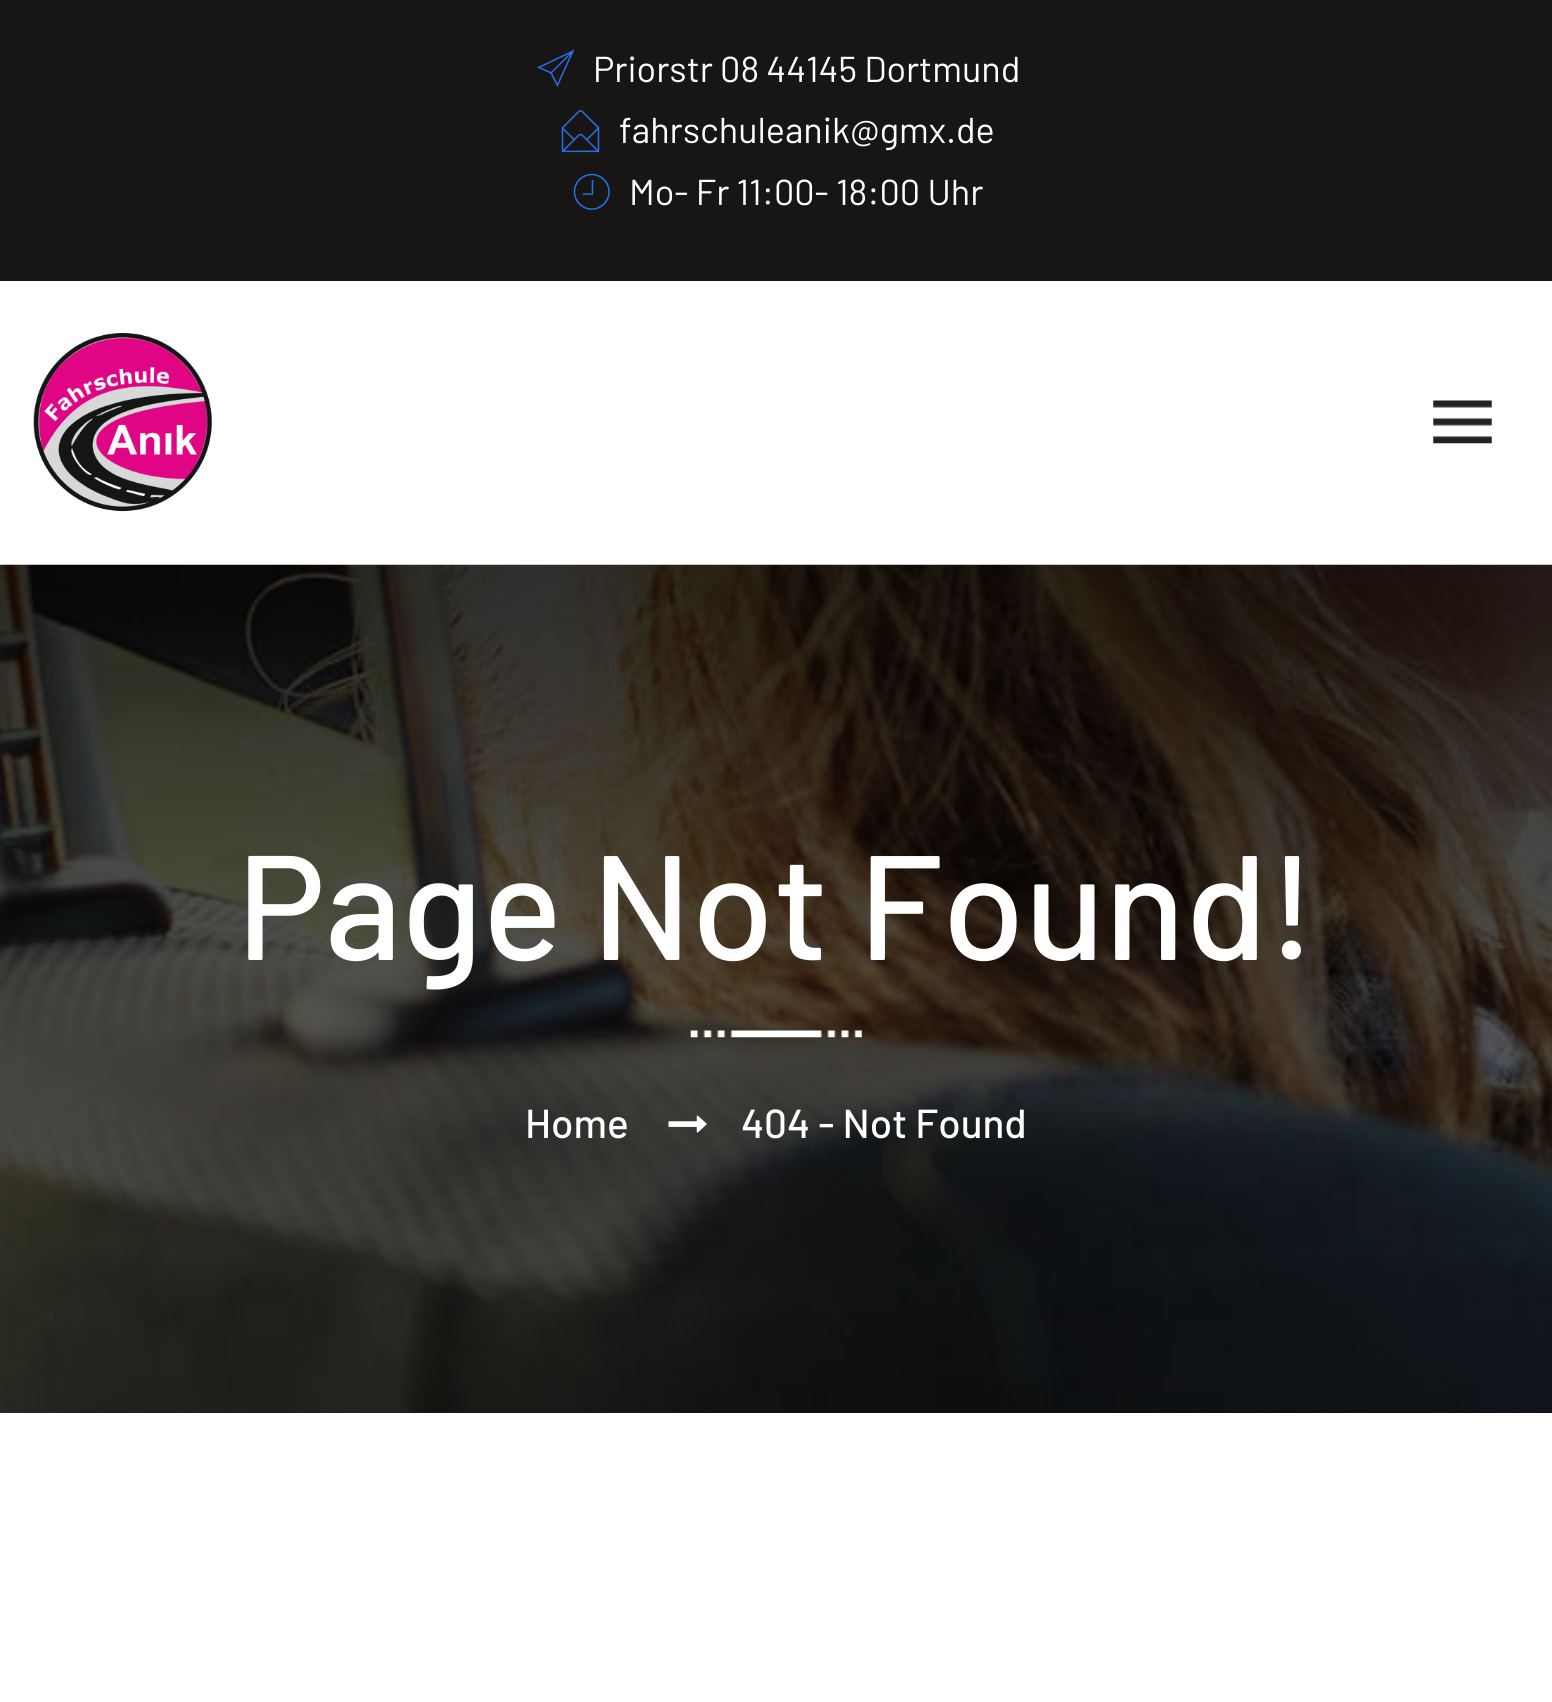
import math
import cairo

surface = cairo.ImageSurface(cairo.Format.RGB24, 1552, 1702)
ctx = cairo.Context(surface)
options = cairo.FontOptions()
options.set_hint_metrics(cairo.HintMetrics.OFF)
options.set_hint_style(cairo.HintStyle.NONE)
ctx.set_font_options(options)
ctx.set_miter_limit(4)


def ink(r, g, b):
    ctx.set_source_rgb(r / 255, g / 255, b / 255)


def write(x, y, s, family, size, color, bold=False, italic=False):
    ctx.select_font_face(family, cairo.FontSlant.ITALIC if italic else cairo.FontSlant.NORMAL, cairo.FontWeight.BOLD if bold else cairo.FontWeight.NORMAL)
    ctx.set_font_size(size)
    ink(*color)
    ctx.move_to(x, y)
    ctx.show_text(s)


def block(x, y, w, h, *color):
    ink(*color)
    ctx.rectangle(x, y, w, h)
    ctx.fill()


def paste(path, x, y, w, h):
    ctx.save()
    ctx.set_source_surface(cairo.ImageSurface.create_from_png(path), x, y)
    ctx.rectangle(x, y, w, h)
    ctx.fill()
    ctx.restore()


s1 = dict(family="Barlow", size=36, color=(255, 255, 255))
s2 = dict(family="Barlow Medium", size=148.5, color=(255, 255, 255))
s3 = dict(family="Barlow Medium", size=40.5, color=(255, 255, 255))

ink(255, 255, 255)
ctx.paint()
block(0, 0, 1552, 281, 24, 22, 20)
ink(39, 111, 233)
ctx.new_path()
ctx.move_to(550.5, 73.5)
ctx.line_to(557.5, 87)
ctx.line_to(574.5, 49.5)
ctx.line_to(537, 67.5)
ctx.close_path()
ctx.move_to(551, 72)
ctx.line_to(540.5, 67.5)
ctx.line_to(569.5, 53.5)
ctx.close_path()
ctx.move_to(557.5, 83.5)
ctx.line_to(552, 73)
ctx.line_to(570.5, 54.5)
ctx.close_path()
ctx.fill()
write(593, 82, "Priorstr 08 44145 Dortmund", **s1)
paste("pic1.png", 561, 110, 39, 43)
write(619, 143, "fahrschuleanik@gmx.de", **s1)
paste("pic2.png", 573, 173, 37, 37)
write(629, 205, "Mo- Fr 11:00- 18:00 Uhr", **s1)
paste("pic3.png", 33, 333, 179, 179)
paste("pic4.png", 1433, 400, 59, 44)
paste("pic5.png", 0, 564, 1552, 849)
write(237, 960, "Page Not Found!", **s2)
paste("pic6.png", 690, 1030, 172, 8)
write(525, 1138, "Home", **s3)
paste("pic7.png", 668, 1115, 39, 18)
write(741, 1138, "404 - Not Found", **s3)
surface.write_to_png("screenshot.png")
